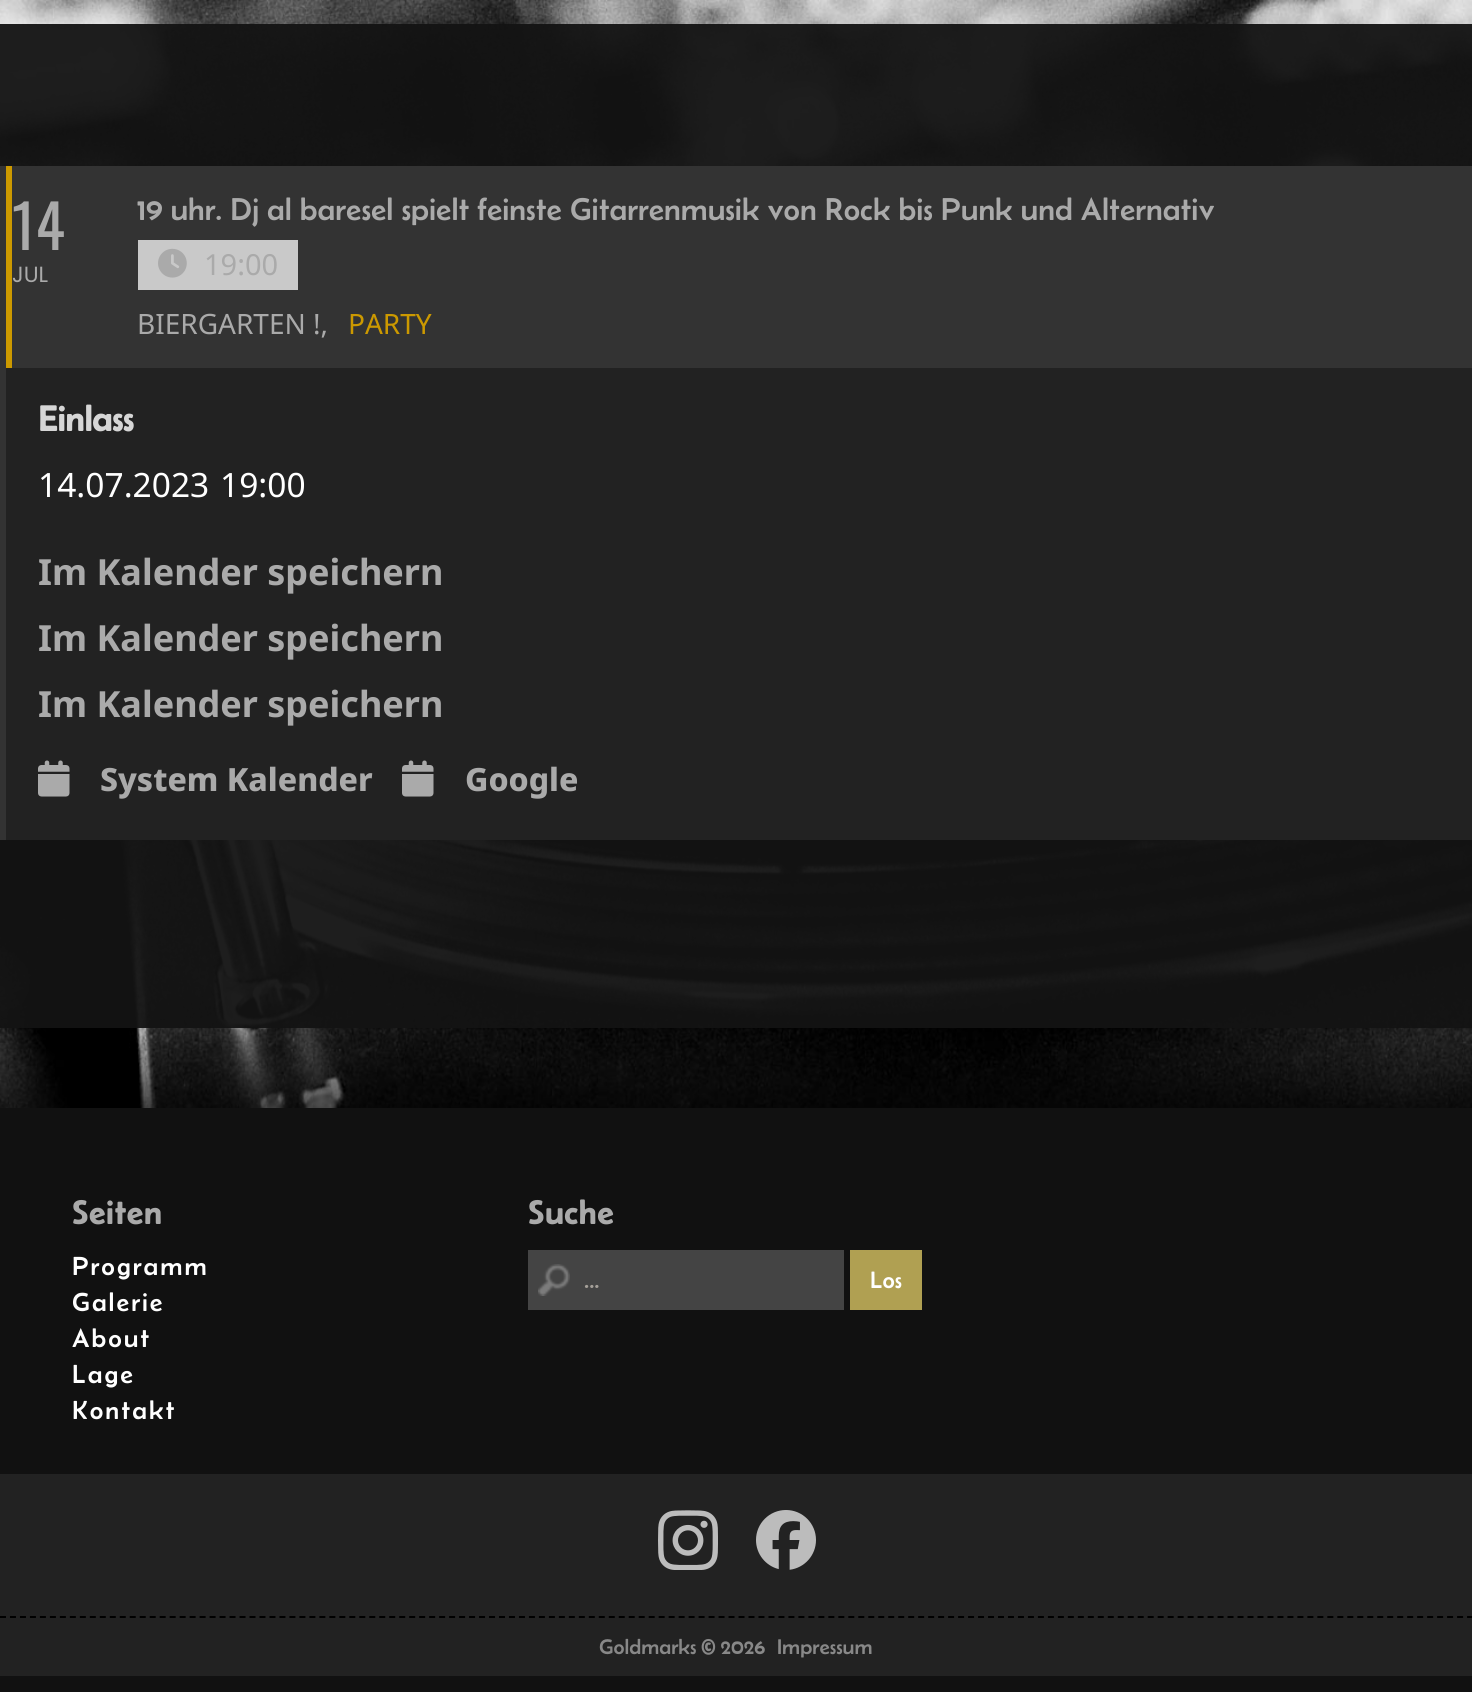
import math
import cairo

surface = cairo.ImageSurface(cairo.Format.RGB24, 1472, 1692)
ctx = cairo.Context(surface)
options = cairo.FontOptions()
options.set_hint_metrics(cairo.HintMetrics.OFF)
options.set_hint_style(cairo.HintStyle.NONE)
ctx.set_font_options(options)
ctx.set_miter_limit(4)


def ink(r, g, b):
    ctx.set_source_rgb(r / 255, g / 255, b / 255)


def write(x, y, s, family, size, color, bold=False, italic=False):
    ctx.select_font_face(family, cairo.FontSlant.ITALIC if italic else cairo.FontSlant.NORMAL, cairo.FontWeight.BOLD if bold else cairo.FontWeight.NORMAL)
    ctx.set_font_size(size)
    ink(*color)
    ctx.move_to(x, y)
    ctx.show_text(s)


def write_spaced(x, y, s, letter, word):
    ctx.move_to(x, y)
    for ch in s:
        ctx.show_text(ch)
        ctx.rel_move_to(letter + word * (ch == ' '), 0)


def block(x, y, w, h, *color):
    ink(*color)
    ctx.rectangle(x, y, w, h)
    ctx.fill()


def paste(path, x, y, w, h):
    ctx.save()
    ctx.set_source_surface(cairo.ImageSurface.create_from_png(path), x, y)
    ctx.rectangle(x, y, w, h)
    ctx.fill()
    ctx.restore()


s1 = dict(family="Oswald", size=60, color=(170, 170, 170))
s2 = dict(family="Poppins", size=22, color=(170, 170, 170))
s3 = dict(family="Belanosima", size=32, color=(170, 170, 170))
s4 = dict(family="Noto Sans", size=29, color=(170, 170, 170))
s5 = dict(family="Noto Sans", size=28, color=(170, 170, 170))
s6 = dict(family="Noto Sans", size=28, color=(204, 153, 0))
s7 = dict(family="Belanosima", size=36, color=(214, 214, 214), bold=True)
s8 = dict(family="Noto Sans", size=33.5, color=(255, 255, 255))
s9 = dict(family="Noto Sans", size=36, color=(170, 170, 170), bold=True)
s10 = dict(family="Noto Sans ExtraBold", size=32, color=(170, 170, 170))
s11 = dict(family="Belanosima", size=24, color=(165, 160, 153))
s12 = dict(family="Belanosima", size=24, color=(255, 255, 255))
s13 = dict(family="Belanosima", size=21.5, color=(136, 136, 136))

ink(255, 255, 255)
ctx.paint()
paste("pic1.png", 0, 0, 1472, 1108)
ctx.set_source_rgba(0.078, 0.078, 0.078, 0.95)
ctx.rectangle(0, 24, 1472, 1004)
ctx.fill()
block(0, 166, 6, 674, 51, 51, 51)
block(12, 166, 1460, 202, 51, 51, 51)
block(6, 166, 6, 202, 204, 153, 0)
write(12, 250, "14", **s1)
write(12, 282, "JUL", **s2)
write(137, 220, "19 uhr. Dj al baresel spielt feinste Gitarrenmusik von Rock bis Punk und Alternativ", **s3)
block(138, 240, 160, 50, 201, 201, 201)
paste("pic2.png", 158, 248, 29, 30)
write(204, 275, "19:00", **s4)
write(137, 334, "BIERGARTEN !,", **s5)
write(348, 334, "PARTY", **s6)
block(6, 368, 1466, 472, 34, 34, 34)
write(38, 431, "Einlass", **s7)
write(38, 497, "14.07.2023", **s8)
write(220, 497, "19:00", **s8)
write(38, 585, "Im Kalender speichern", **s9)
write(38, 651, "Im Kalender speichern", **s9)
write(38, 717, "Im Kalender speichern", **s9)
paste("pic3.png", 38, 760, 32, 37)
write(100, 791, "System Kalender", **s10)
paste("pic3.png", 402, 760, 32, 37)
write(465, 791, "Google", **s10)
block(0, 1108, 1472, 584, 17, 17, 17)
ctx.select_font_face("Belanosima", cairo.FontSlant.NORMAL, cairo.FontWeight.BOLD)
ctx.set_font_size(33.5)
ink(170, 170, 170)
write_spaced(72, 1224, "Seiten", 1, 0)
ctx.select_font_face("Belanosima")
ctx.set_font_size(26.5)
ink(255, 255, 255)
write_spaced(72, 1275, "Programm", 2, 0)
write_spaced(72, 1311, "Galerie", 2, 0)
write_spaced(72, 1347, "About", 2, 0)
write_spaced(72, 1383, "Lage", 2, 0)
write_spaced(72, 1419, "Kontakt", 2, 0)
ctx.select_font_face("Belanosima", cairo.FontSlant.NORMAL, cairo.FontWeight.BOLD)
ctx.set_font_size(33.5)
ink(170, 170, 170)
write_spaced(528, 1224, "Suche", 1, 0)
block(528, 1250, 316, 60, 68, 68, 68)
paste("pic4.png", 538, 1264, 32, 32)
write(584, 1288, "...", **s11)
block(850, 1250, 72, 60, 176, 160, 82)
write(870, 1288, "Los", **s12)
block(0, 1474, 1472, 202, 34, 34, 34)
ctx.new_path()
ctx.move_to(0, 1617)
ctx.line_to(1472, 1617)
ink(0, 0, 0)
ctx.set_dash([6, 3.98])
ctx.stroke()
paste("pic5.png", 658, 1510, 60, 60)
paste("pic6.png", 756, 1510, 60, 60)
write(599, 1654, "Goldmarks © 2026", **s13)
write(777, 1654, "Impressum", **s13)
surface.write_to_png("screenshot.png")
